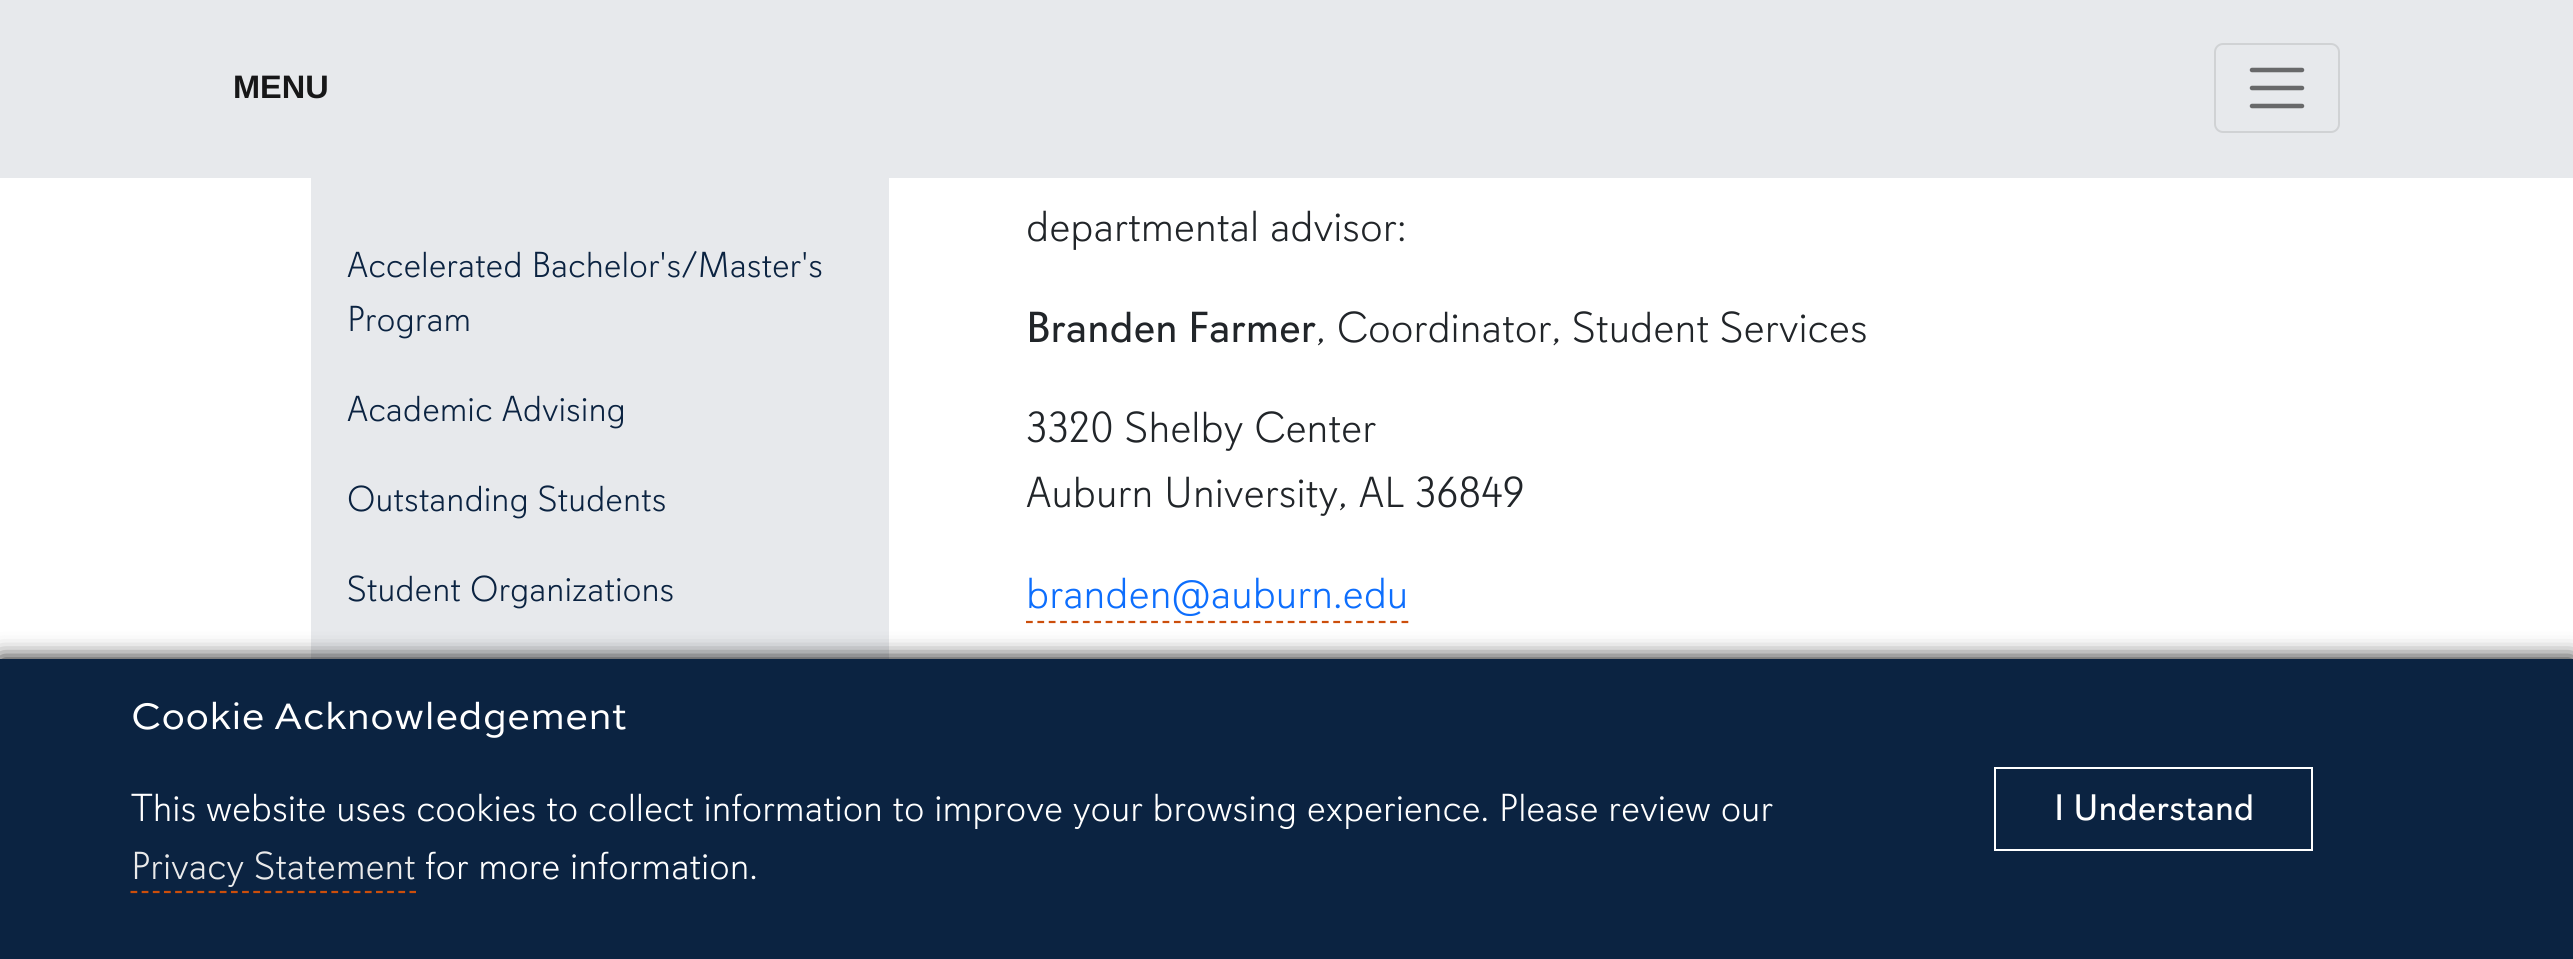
import math
import cairo

surface = cairo.ImageSurface(cairo.Format.RGB24, 2573, 959)
ctx = cairo.Context(surface)
options = cairo.FontOptions()
options.set_hint_metrics(cairo.HintMetrics.OFF)
options.set_hint_style(cairo.HintStyle.NONE)
ctx.set_font_options(options)
ctx.set_miter_limit(4)


def ink(r, g, b):
    ctx.set_source_rgb(r / 255, g / 255, b / 255)


def write(x, y, s, family, size, color, bold=False, italic=False):
    ctx.select_font_face(family, cairo.FontSlant.ITALIC if italic else cairo.FontSlant.NORMAL, cairo.FontWeight.BOLD if bold else cairo.FontWeight.NORMAL)
    ctx.set_font_size(size)
    ink(*color)
    ctx.move_to(x, y)
    ctx.show_text(s)


def block(x, y, w, h, *color):
    ink(*color)
    ctx.rectangle(x, y, w, h)
    ctx.fill()


def round_path(x, y, w, h, r):
    ctx.new_sub_path()
    for i, (u, v) in enumerate([(x + w - r, y + h - r), (x + r, y + h - r), (x + r, y + r), (x + w - r, y + r)]):
        ctx.arc(u, v, r, i * math.pi / 2, (i + 1) * math.pi / 2)
    ctx.close_path()


def blur_box(x, y, w, h, r, blur, alpha):
    ctx.push_group_with_content(cairo.Content.ALPHA)
    ctx.set_operator(cairo.Operator.SOURCE)
    for i in range(15, -16, -2):
        e = blur * i / 6
        if min(w, h) + 2 * e > 0:
            ctx.set_source_rgba(0, 0, 0, alpha * math.erfc((i - 1) / 8.5) / 2)
            round_path(x - e, y - e, w + 2 * e, h + 2 * e, max(0, min(r + e + blur * .6, min(w, h) / 2 + e)))
            ctx.fill()
    ctx.mask(ctx.pop_group())


s1 = dict(family="Liberation Sans", size=32.5, color=(23, 23, 24), bold=True)
s2 = dict(family="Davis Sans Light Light", size=36, color=(11, 35, 65))
s3 = dict(family="Davis Sans Light Light", size=43.25, color=(33, 37, 41))
s4 = dict(family="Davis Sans", size=43.25, color=(33, 37, 41))
s5 = dict(family="Davis Sans Light Light", size=43.25, color=(13, 110, 253))
s6 = dict(family="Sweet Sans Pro", size=38.9, color=(255, 255, 255))
s7 = dict(family="Davis Sans Light Light", size=38.9, color=(255, 255, 255))
s8 = dict(family="Davis Sans Light Light", size=38.9, color=(234, 234, 234))
s9 = dict(family="Davis Sans", size=36.75, color=(255, 255, 255))

ink(255, 255, 255)
ctx.paint()
block(0, 0, 2573, 178, 231, 233, 236)
write(233, 98, "MENU", **s1)
round_path(2215, 44, 124, 88, 8)
ink(208, 210, 212)
ctx.stroke()
ctx.new_path()
ctx.move_to(2252, 70)
ctx.line_to(2302, 70)
ctx.move_to(2252, 88)
ctx.line_to(2302, 88)
ctx.move_to(2252, 106)
ctx.line_to(2302, 106)
ink(104, 105, 106)
ctx.set_line_width(4.5)
ctx.set_line_cap(cairo.LineCap.ROUND)
ctx.stroke()
block(311, 178, 578, 481, 231, 233, 236)
write(347, 277, "Accelerated Bachelor's/Master's", **s2)
write(347, 331, "Program", **s2)
write(347, 421, "Academic Advising", **s2)
write(347, 511, "Outstanding Students", **s2)
write(347, 601, "Student Organizations", **s2)
write(1026, 241, "departmental advisor:", **s3)
write(1026, 342, "Branden Farmer", **s4)
write(1316, 342, ", Coordinator, Student Services", **s3)
write(1026, 442, "3320 Shelby Center", **s3)
write(1026, 507, "Auburn University, AL 36849", **s3)
write(1026, 608, "branden@auburn.edu", **s5)
ctx.new_path()
ctx.move_to(1026, 622)
ctx.line_to(1408.5, 622)
ink(204, 78, 11)
ctx.set_line_width(2.2)
ctx.set_line_cap(cairo.LineCap.BUTT)
ctx.set_dash([6.75, 4.63])
ctx.stroke()
ink(0, 0, 0)
blur_box(0, 659, 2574, 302, 0, 11, 1)
block(0, 659, 2573, 300, 11, 35, 65)
write(131, 729, "Cookie Acknowledgement", **s6)
write(131, 821, "This website uses cookies to collect information to improve your browsing experience. Please review our", **s7)
write(131, 879, "Privacy Statement", **s8)
ctx.new_path()
ctx.move_to(130.5, 892)
ctx.line_to(416, 892)
ink(204, 78, 11)
ctx.set_dash([6.75, 4.41])
ctx.stroke()
write(425, 879, "for more information.", **s7)
ctx.rectangle(1995, 768, 317, 82)
ctx.set_line_width(2)
ctx.set_dash([])
ctx.stroke()
write(2054, 820, "I Understand", **s9)
surface.write_to_png("screenshot.png")
